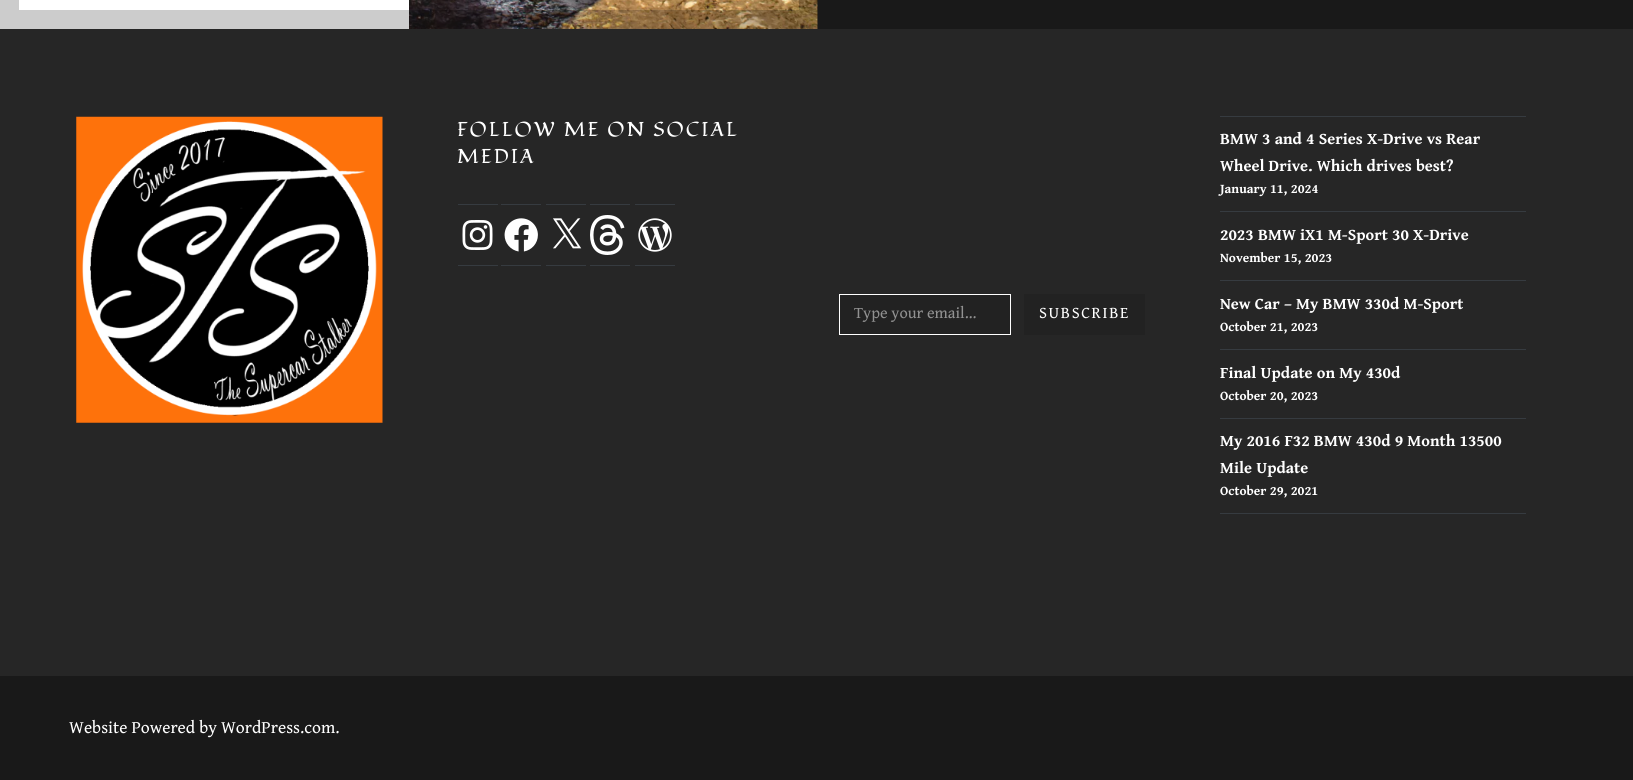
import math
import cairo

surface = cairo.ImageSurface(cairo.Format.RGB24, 1633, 780)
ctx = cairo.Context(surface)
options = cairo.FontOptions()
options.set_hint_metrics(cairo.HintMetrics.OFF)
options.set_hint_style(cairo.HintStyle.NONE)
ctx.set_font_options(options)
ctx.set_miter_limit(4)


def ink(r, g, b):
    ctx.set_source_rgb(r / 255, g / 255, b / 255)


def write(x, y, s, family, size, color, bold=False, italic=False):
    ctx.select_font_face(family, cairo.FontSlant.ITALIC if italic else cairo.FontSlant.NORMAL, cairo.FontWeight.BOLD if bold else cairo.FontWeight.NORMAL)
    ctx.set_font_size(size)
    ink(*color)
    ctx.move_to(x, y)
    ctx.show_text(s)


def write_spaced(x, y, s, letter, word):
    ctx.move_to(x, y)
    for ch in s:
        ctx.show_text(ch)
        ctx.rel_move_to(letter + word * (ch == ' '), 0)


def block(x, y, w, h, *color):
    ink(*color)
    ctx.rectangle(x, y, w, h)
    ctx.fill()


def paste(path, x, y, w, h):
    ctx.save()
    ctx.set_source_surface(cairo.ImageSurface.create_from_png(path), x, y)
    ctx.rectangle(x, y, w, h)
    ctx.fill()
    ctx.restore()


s1 = dict(family="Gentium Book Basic", size=16.25, color=(145, 145, 145))
s2 = dict(family="Gentium Book Basic", size=16.25, color=(255, 255, 255), bold=True)
s3 = dict(family="Gentium Book Basic", size=13.25, color=(255, 255, 255), bold=True)
s4 = dict(family="Gentium Book Basic", size=17.5, color=(255, 255, 255))

ink(25, 25, 25)
ctx.paint()
block(0, 0, 409, 29, 255, 255, 255)
paste("pic1.png", 409, 0, 409, 29)
ctx.rectangle(9.5, -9.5, 799, 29)
ctx.set_source_rgba(0, 0, 0, 0.2)
ctx.set_line_width(19)
ctx.stroke()
block(0, 29, 1633, 647, 38, 38, 38)
paste("pic2.png", 76, 116, 307, 307)
ctx.select_font_face("Fondamento")
ctx.set_font_size(20)
ink(255, 255, 255)
write_spaced(457, 136, "FOLLOW ME ON SOCIAL", 2, 0)
write_spaced(457, 163, "MEDIA", 2, 0)
block(458, 204, 40, 1, 54, 59, 64)
block(458, 265, 40, 1, 54, 59, 64)
paste("pic3.png", 462, 220, 31, 30)
block(501, 204, 40, 1, 54, 59, 64)
block(501, 265, 40, 1, 54, 59, 64)
paste("pic4.png", 504, 218, 34, 34)
block(546, 204, 40, 1, 54, 59, 64)
block(546, 265, 40, 1, 54, 59, 64)
paste("pic5.png", 553, 218, 29, 31)
block(590, 204, 40, 1, 54, 59, 64)
block(590, 265, 40, 1, 54, 59, 64)
paste("pic6.png", 590, 215, 35, 40)
block(635, 204, 40, 1, 54, 59, 64)
block(635, 265, 40, 1, 54, 59, 64)
paste("pic7.png", 638, 218, 34, 34)
ink(34, 34, 34)
ctx.rectangle(839.5, 294.5, 171, 40)
ctx.fill_preserve()
ink(255, 255, 255)
ctx.set_line_width(1)
ctx.stroke()
write(854, 318, "Type your email…", **s1)
block(1024, 294, 121, 41, 34, 34, 34)
ink(255, 255, 255)
write_spaced(1039, 318, "SUBSCRIBE", 1.6, 0)
block(1220, 116, 306, 1, 54, 59, 64)
block(1220, 211, 306, 1, 54, 59, 64)
write(1220, 144, "BMW 3 and 4 Series X-Drive vs Rear", **s2)
write(1220, 171, "Wheel Drive. Which drives best?", **s2)
write(1220, 193, "January 11, 2024", **s3)
block(1220, 280, 306, 1, 54, 59, 64)
write(1220, 240, "2023 BMW iX1 M-Sport 30 X-Drive", **s2)
write(1220, 262, "November 15, 2023", **s3)
block(1220, 349, 306, 1, 54, 59, 64)
write(1220, 309, "New Car – My BMW 330d M-Sport", **s2)
write(1220, 331, "October 21, 2023", **s3)
block(1220, 418, 306, 1, 54, 59, 64)
write(1220, 378, "Final Update on My 430d", **s2)
write(1220, 400, "October 20, 2023", **s3)
block(1220, 513, 306, 1, 54, 59, 64)
write(1220, 446, "My 2016 F32 BMW 430d 9 Month 13500", **s2)
write(1220, 473, "Mile Update", **s2)
write(1220, 495, "October 29, 2021", **s3)
write(69, 733, "Website Powered by WordPress.com.", **s4)
surface.write_to_png("screenshot.png")
